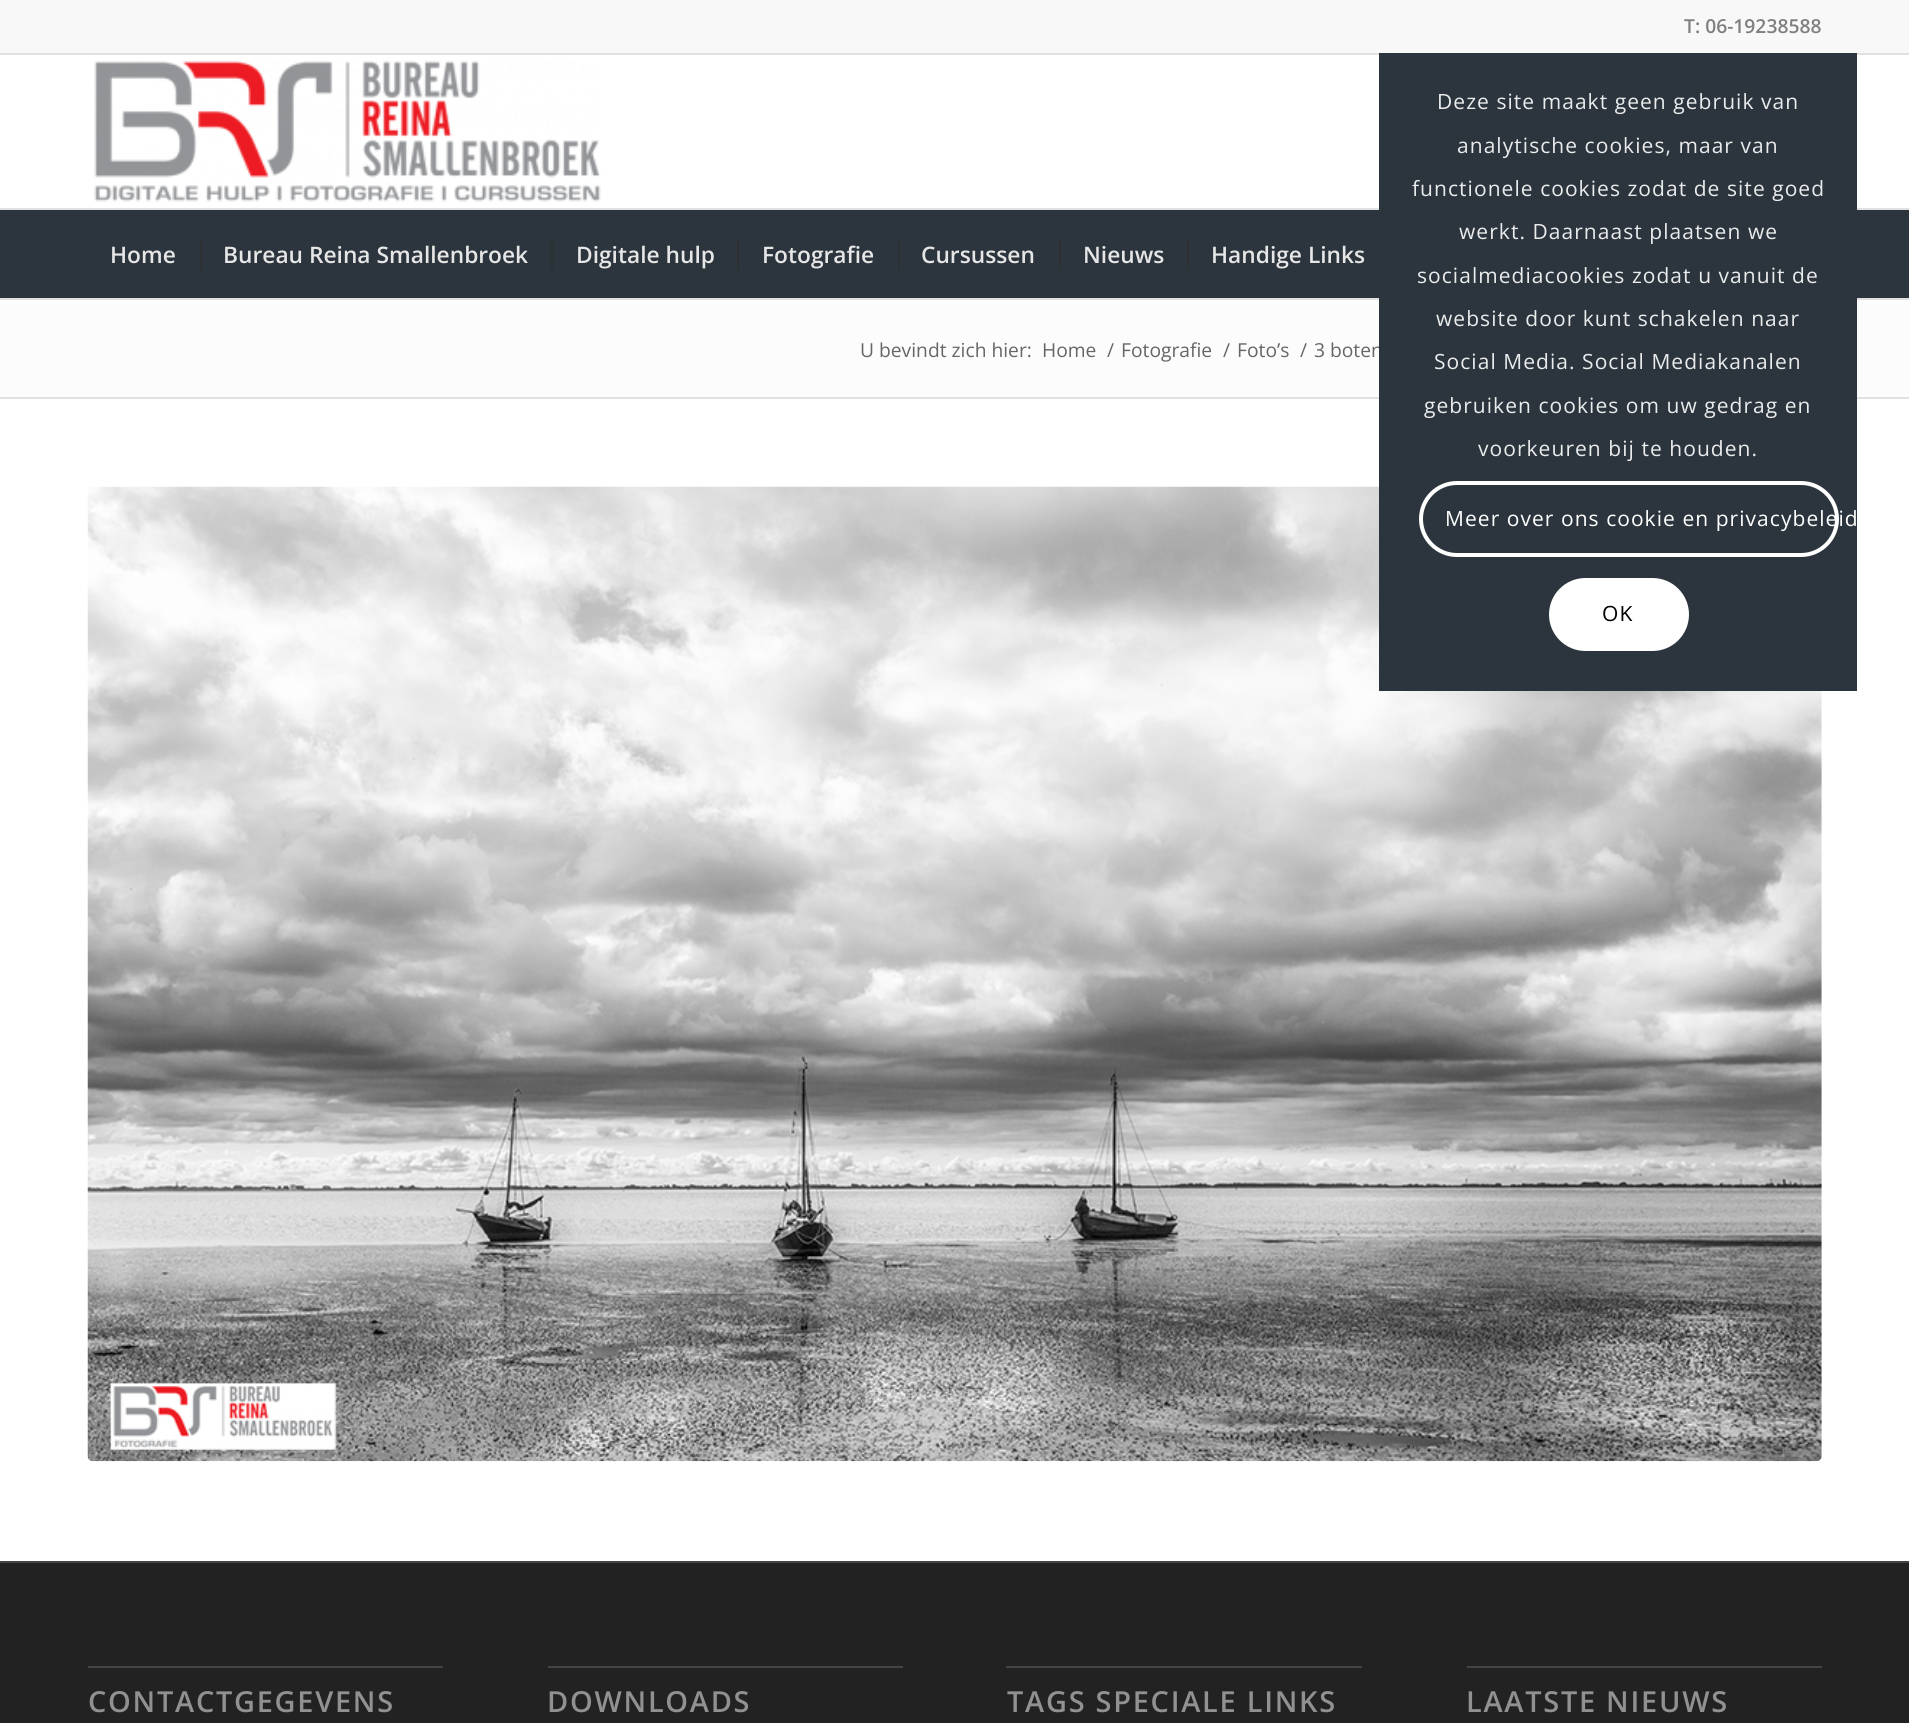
import math
import cairo

surface = cairo.ImageSurface(cairo.Format.RGB24, 1909, 1723)
ctx = cairo.Context(surface)
options = cairo.FontOptions()
options.set_hint_metrics(cairo.HintMetrics.OFF)
options.set_hint_style(cairo.HintStyle.NONE)
ctx.set_font_options(options)
ctx.set_miter_limit(4)


def ink(r, g, b):
    ctx.set_source_rgb(r / 255, g / 255, b / 255)


def write(x, y, s, family, size, color, bold=False, italic=False):
    ctx.select_font_face(family, cairo.FontSlant.ITALIC if italic else cairo.FontSlant.NORMAL, cairo.FontWeight.BOLD if bold else cairo.FontWeight.NORMAL)
    ctx.set_font_size(size)
    ink(*color)
    ctx.move_to(x, y)
    ctx.show_text(s)


def write_spaced(x, y, s, letter, word):
    ctx.move_to(x, y)
    for ch in s:
        ctx.show_text(ch)
        ctx.rel_move_to(letter + word * (ch == ' '), 0)


def block(x, y, w, h, *color):
    ink(*color)
    ctx.rectangle(x, y, w, h)
    ctx.fill()


def round_path(x, y, w, h, r):
    ctx.new_sub_path()
    for i, (u, v) in enumerate([(x + w - r, y + h - r), (x + r, y + h - r), (x + r, y + r), (x + w - r, y + r)]):
        ctx.arc(u, v, r, i * math.pi / 2, (i + 1) * math.pi / 2)
    ctx.close_path()


def paste(path, x, y, w, h):
    ctx.save()
    ctx.set_source_surface(cairo.ImageSurface.create_from_png(path), x, y)
    ctx.rectangle(x, y, w, h)
    ctx.fill()
    ctx.restore()


s1 = dict(family="Open Sans SemiBold", size=19.25, color=(128, 128, 128))
s2 = dict(family="Open Sans SemiBold", size=22.75, color=(230, 230, 230))
s3 = dict(family="Open Sans", size=19.25, color=(102, 102, 102))

ink(255, 255, 255)
ctx.paint()
block(0, 0, 1909, 53, 248, 248, 248)
block(0, 53, 1909, 2, 225, 225, 225)
write(1684, 33, "T: 06-19238588", **s1)
block(0, 298, 1909, 2, 225, 225, 225)
paste("pic1.png", 94, 60, 507, 142)
block(0, 210, 1909, 88, 44, 53, 61)
block(0, 208, 1909, 2, 225, 225, 225)
write(110, 263, "Home", **s2)
write(223, 263, "Bureau Reina Smallenbroek", **s2)
block(200, 238, 2, 32, 44, 48, 51)
write(576, 263, "Digitale hulp", **s2)
block(551, 238, 2, 32, 44, 48, 51)
write(762, 263, "Fotografie", **s2)
block(737, 238, 2, 32, 44, 48, 51)
write(921, 263, "Cursussen", **s2)
block(898, 238, 2, 32, 44, 48, 51)
write(1083, 263, "Nieuws", **s2)
block(1059, 238, 2, 32, 44, 48, 51)
write(1211, 263, "Handige Links", **s2)
block(1187, 238, 2, 32, 44, 48, 51)
block(0, 300, 1909, 97, 252, 252, 252)
write(860, 357, "U bevindt zich hier:", **s3)
write(1042, 357, "Home", **s3)
write(1107, 357, "/", **s3)
write(1121, 357, "Fotografie", **s3)
write(1223, 357, "/", **s3)
write(1237, 357, "Foto’s", **s3)
write(1300, 357, "/", **s3)
write(1314, 357, "3 boten", **s3)
block(0, 397, 1909, 2, 225, 225, 225)
paste("pic2.png", 87, 486, 1735, 976)
block(0, 1563, 1909, 160, 34, 34, 34)
block(0, 1561, 1909, 2, 68, 68, 68)
block(88, 1666, 355, 2, 68, 68, 68)
ctx.select_font_face("Open Sans SemiBold")
ctx.set_font_size(28.9)
ink(145, 145, 145)
write_spaced(88, 1712, "CONTACTGEGEVENS", 1.75, 0)
block(548, 1666, 355, 2, 68, 68, 68)
ink(145, 145, 145)
write_spaced(547, 1712, "DOWNLOADS", 1.75, 0)
block(1006, 1666, 356, 2, 68, 68, 68)
ink(145, 145, 145)
write_spaced(1007, 1712, "TAGS SPECIALE LINKS", 1.75, 0)
block(1467, 1666, 355, 2, 68, 68, 68)
ink(145, 145, 145)
write_spaced(1466, 1712, "LAATSTE NIEUWS", 1.75, 0)
block(1379, 53, 478, 638, 44, 53, 61)
ctx.select_font_face("Open Sans")
ctx.set_font_size(21)
ink(234, 235, 236)
write_spaced(1437, 109, "Deze site maakt geen gebruik van", 1.05, 0)
write_spaced(1457, 153, "analytische cookies, maar van", 1.05, 0)
write_spaced(1412, 196, "functionele cookies zodat de site goed", 1.05, 0)
write_spaced(1459, 239, "werkt. Daarnaast plaatsen we", 1.05, 0)
write_spaced(1417, 283, "socialmediacookies zodat u vanuit de", 1.05, 0)
write_spaced(1436, 326, "website door kunt schakelen naar", 1.05, 0)
write_spaced(1434, 369, "Social Media. Social Mediakanalen", 1.05, 0)
write_spaced(1424, 413, "gebruiken cookies om uw gedrag en", 1.05, 0)
write_spaced(1478, 456, "voorkeuren bij te houden.", 1.05, 0)
round_path(1421, 483, 416, 72, 36)
ink(255, 255, 255)
ctx.set_line_width(4)
ctx.stroke()
write_spaced(1445, 526, "Meer over ons cookie en privacybeleid", 1.05, 0)
round_path(1549, 578, 140, 73, 36.5)
ctx.fill()
ink(0, 0, 0)
write_spaced(1602, 621, "OK", 1.05, 0)
surface.write_to_png("screenshot.png")
